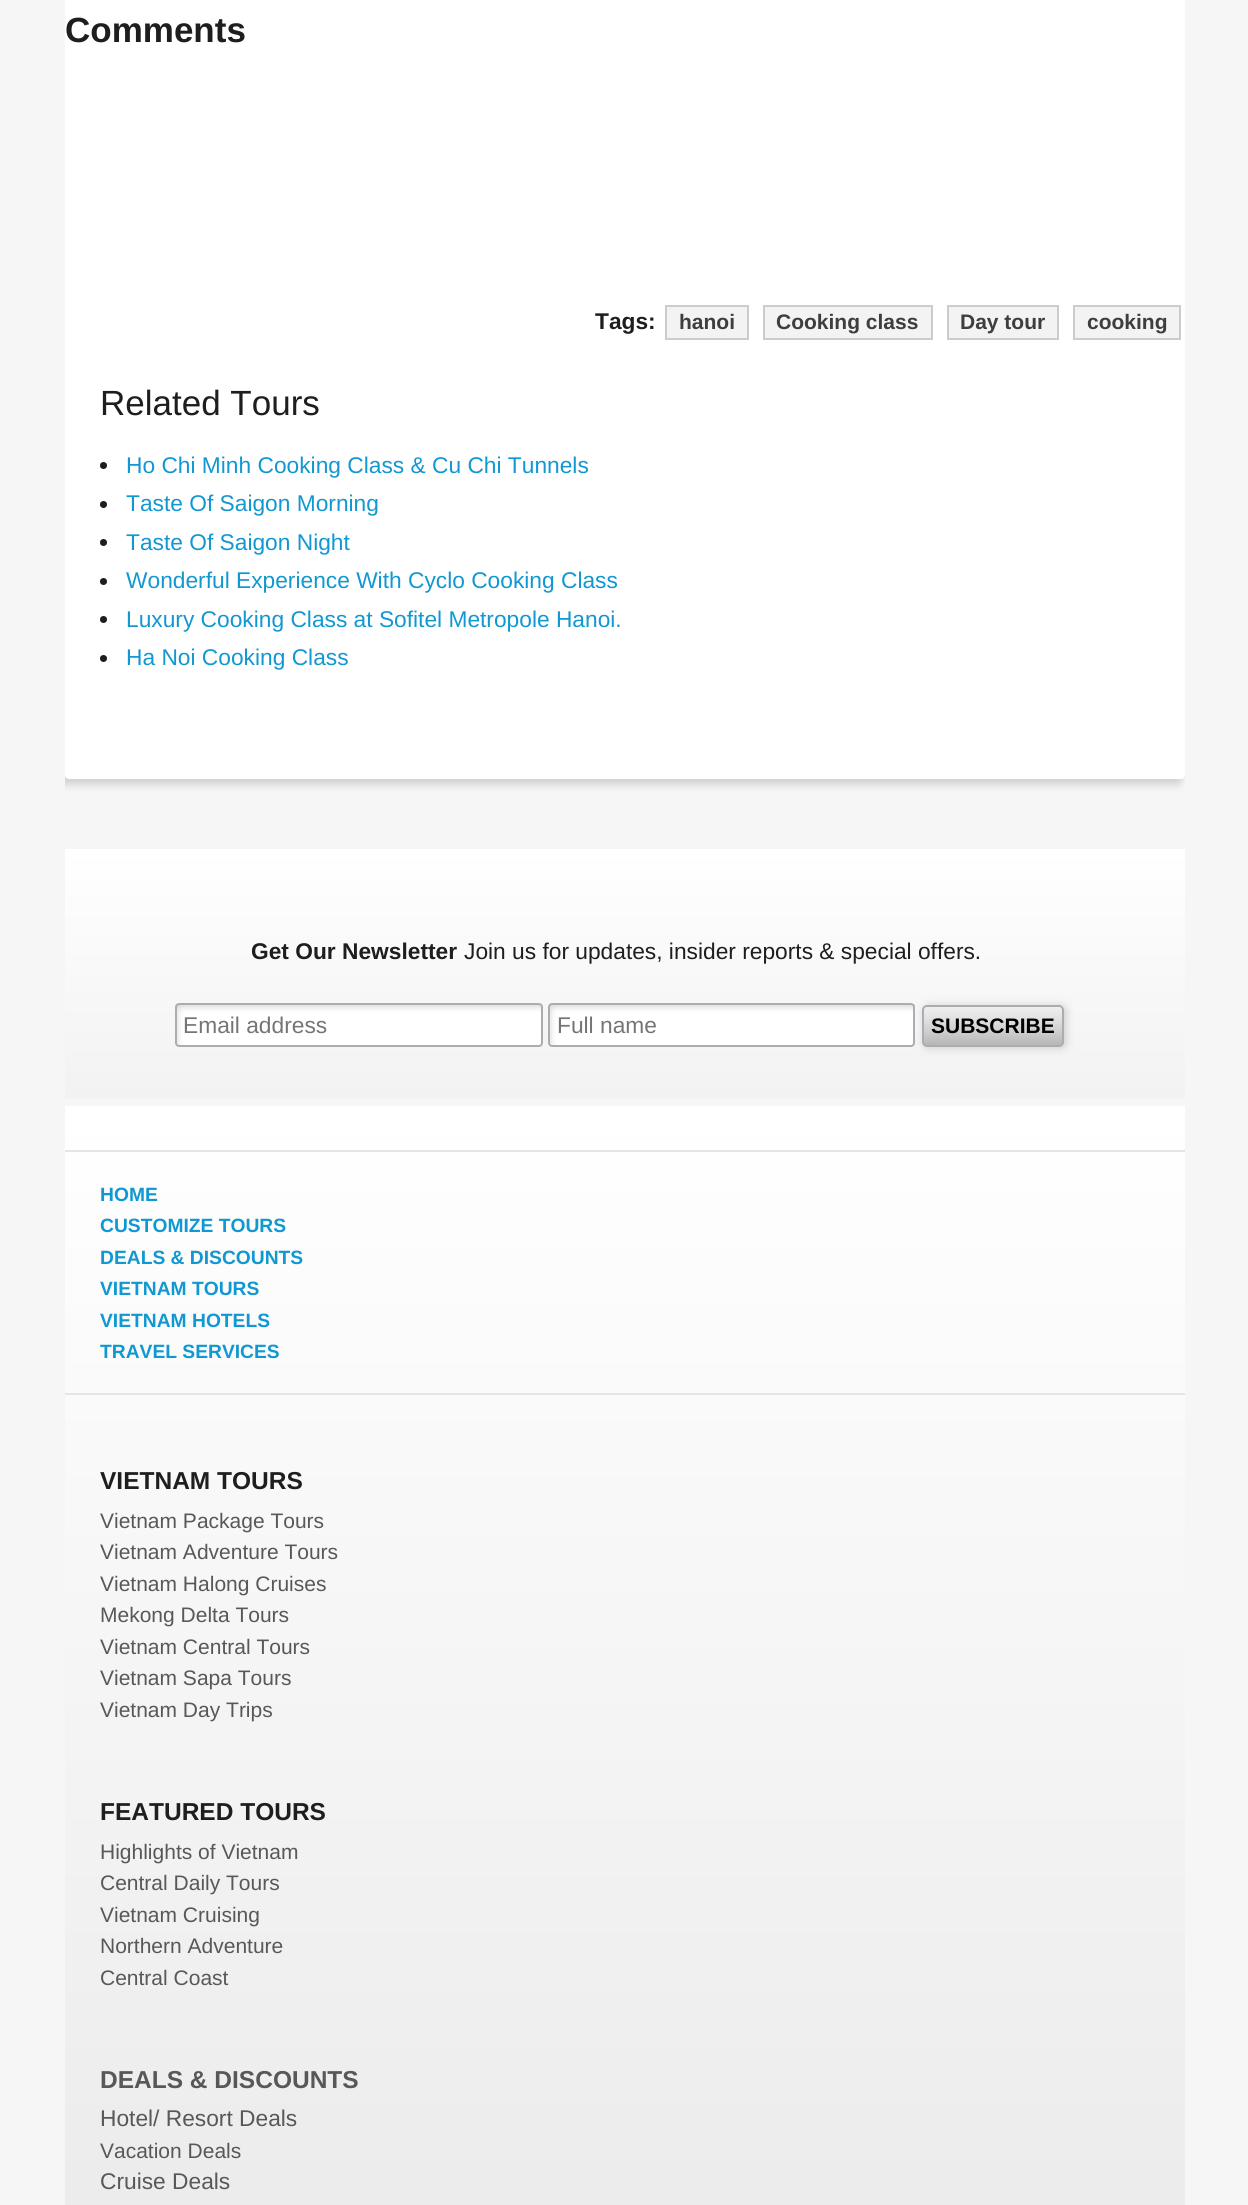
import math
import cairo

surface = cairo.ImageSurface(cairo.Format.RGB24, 1248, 2205)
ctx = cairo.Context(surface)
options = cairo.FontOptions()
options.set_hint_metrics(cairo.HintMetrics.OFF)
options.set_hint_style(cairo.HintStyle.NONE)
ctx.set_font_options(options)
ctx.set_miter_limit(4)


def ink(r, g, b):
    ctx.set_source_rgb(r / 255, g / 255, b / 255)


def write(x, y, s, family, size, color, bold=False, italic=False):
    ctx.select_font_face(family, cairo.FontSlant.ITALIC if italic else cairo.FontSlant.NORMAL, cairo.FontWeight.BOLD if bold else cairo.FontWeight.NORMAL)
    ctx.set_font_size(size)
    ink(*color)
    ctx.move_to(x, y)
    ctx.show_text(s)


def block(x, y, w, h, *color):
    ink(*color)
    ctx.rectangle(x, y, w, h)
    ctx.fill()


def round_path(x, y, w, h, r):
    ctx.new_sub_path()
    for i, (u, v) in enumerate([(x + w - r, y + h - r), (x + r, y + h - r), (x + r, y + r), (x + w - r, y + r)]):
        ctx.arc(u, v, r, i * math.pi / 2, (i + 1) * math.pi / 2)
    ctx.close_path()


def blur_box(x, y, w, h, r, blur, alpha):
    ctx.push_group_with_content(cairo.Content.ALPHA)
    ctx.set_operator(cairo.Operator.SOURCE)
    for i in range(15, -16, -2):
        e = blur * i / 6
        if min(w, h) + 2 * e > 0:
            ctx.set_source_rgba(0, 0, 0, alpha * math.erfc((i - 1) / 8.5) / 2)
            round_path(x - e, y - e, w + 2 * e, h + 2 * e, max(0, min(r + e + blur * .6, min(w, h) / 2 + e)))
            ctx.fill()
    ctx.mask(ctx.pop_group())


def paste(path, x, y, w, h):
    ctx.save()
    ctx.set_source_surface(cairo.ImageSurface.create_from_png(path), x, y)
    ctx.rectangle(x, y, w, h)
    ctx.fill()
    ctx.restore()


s1 = dict(family="Liberation Sans", size=35, color=(30, 30, 30), bold=True)
s2 = dict(family="Liberation Sans", size=22.75, color=(30, 30, 30), bold=True)
s3 = dict(family="Liberation Sans", size=21, color=(62, 62, 62), bold=True)
s4 = dict(family="Liberation Sans", size=35, color=(30, 30, 30))
s5 = dict(family="Liberation Sans", size=22.75, color=(17, 152, 210))
s6 = dict(family="Liberation Sans", size=22.75, color=(30, 30, 30))
s7 = dict(family="Liberation Sans", size=22.75, color=(117, 117, 117))
s8 = dict(family="Liberation Sans", size=21, color=(0, 0, 0), bold=True)
s9 = dict(family="Liberation Sans", size=19.25, color=(17, 152, 210), bold=True)
s10 = dict(family="Liberation Sans", size=24.5, color=(30, 30, 30), bold=True)
s11 = dict(family="Liberation Sans", size=21, color=(88, 88, 88))
s12 = dict(family="Liberation Sans", size=24.5, color=(88, 88, 88), bold=True)
s13 = dict(family="Liberation Sans", size=22.75, color=(88, 88, 88))

ink(246, 246, 246)
ctx.paint()
ctx.save()
ctx.rectangle(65, 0, 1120, 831)
ctx.clip()
ink(204, 204, 204)
blur_box(61, -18, 1120, 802, 4, 4.5, 1)
ctx.restore()
ink(255, 255, 255)
round_path(65, -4, 1120, 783, 4)
ctx.fill()
write(65, 42, "Comments", **s1)
write(595, 329, "Tags:", **s2)
ink(243, 243, 243)
ctx.rectangle(666, 306, 82, 33)
ctx.fill_preserve()
ink(204, 204, 204)
ctx.stroke()
write(679, 329, "hanoi", **s3)
ink(243, 243, 243)
ctx.rectangle(764, 306, 168, 33)
ctx.fill_preserve()
ink(204, 204, 204)
ctx.stroke()
write(776, 329, "Cooking class", **s3)
ink(243, 243, 243)
ctx.rectangle(948, 306, 110, 33)
ctx.fill_preserve()
ink(204, 204, 204)
ctx.stroke()
write(960, 329, "Day tour", **s3)
ink(243, 243, 243)
ctx.rectangle(1074, 306, 106, 33)
ctx.fill_preserve()
ink(204, 204, 204)
ctx.stroke()
write(1087, 329, "cooking", **s3)
write(100, 415, "Related Tours", **s4)
ctx.new_path()
ctx.arc(103.5, 465.5, 3.5, 0, 2 * math.pi)
ctx.fill()
write(126, 473, "Ho Chi Minh Cooking Class & Cu Chi Tunnels", **s5)
ink(30, 30, 30)
ctx.new_path()
ctx.arc(103.5, 504.5, 3.5, 0, 2 * math.pi)
ctx.fill()
write(126, 511, "Taste Of Saigon Morning", **s5)
ink(30, 30, 30)
ctx.new_path()
ctx.arc(103.5, 542.5, 3.5, 0, 2 * math.pi)
ctx.fill()
write(126, 550, "Taste Of Saigon Night", **s5)
ink(30, 30, 30)
ctx.new_path()
ctx.arc(103.5, 581.5, 3.5, 0, 2 * math.pi)
ctx.fill()
write(126, 588, "Wonderful Experience With Cyclo Cooking Class", **s5)
ink(30, 30, 30)
ctx.new_path()
ctx.arc(103.5, 619.5, 3.5, 0, 2 * math.pi)
ctx.fill()
write(126, 627, "Luxury Cooking Class at Sofitel Metropole Hanoi.", **s5)
ink(30, 30, 30)
ctx.new_path()
ctx.arc(103.5, 658.5, 3.5, 0, 2 * math.pi)
ctx.fill()
write(126, 665, "Ha Noi Cooking Class", **s5)
gradient = cairo.LinearGradient(625, 1099, 625, 849)
gradient.add_color_stop_rgba(0, 0.949, 0.949, 0.949, 1)
gradient.add_color_stop_rgba(1, 1, 1, 1, 1)
ctx.set_source(gradient)
ctx.rectangle(65, 849, 1120, 250)
ctx.fill()
write(251, 959, "Get Our Newsletter", **s2)
write(464, 959, "Join us for updates, insider reports & special offers.", **s6)
ink(255, 255, 255)
round_path(175, 1003, 368, 44, 4)
ctx.fill()
paste("pic1.png", 176, 1004, 367, 41)
round_path(176, 1004, 366, 42, 3)
ink(171, 173, 179)
ctx.stroke()
write(183, 1033, "Email address", **s7)
ink(255, 255, 255)
round_path(548, 1003, 367, 44, 4)
ctx.fill()
paste("pic2.png", 549, 1004, 366, 42)
round_path(549, 1004, 365, 42, 3)
ink(171, 173, 179)
ctx.stroke()
write(557, 1033, "Full name", **s7)
ink(204, 204, 204)
blur_box(924, 1006, 142, 42, 5, 4.5, 1)
paste("pic3.png", 922, 1006, 142, 39)
round_path(923, 1006, 140, 40, 4)
ink(171, 173, 179)
ctx.stroke()
write(931, 1033, "SUBSCRIBE", **s8)
gradient = cairo.LinearGradient(625, 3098, 625, 1106)
gradient.add_color_stop_rgba(0, 0.863, 0.863, 0.863, 1)
gradient.add_color_stop_rgba(1, 1, 1, 1, 1)
ctx.set_source(gradient)
ctx.rectangle(65, 1106, 1120, 1099)
ctx.fill()
block(65, 1150, 1120, 2, 229, 229, 229)
block(65, 1393, 1120, 2, 229, 229, 229)
write(100, 1201, "HOME", **s9)
write(100, 1232, "CUSTOMIZE TOURS", **s9)
write(100, 1264, "DEALS & DISCOUNTS", **s9)
write(100, 1295, "VIETNAM TOURS", **s9)
write(100, 1327, "VIETNAM HOTELS", **s9)
write(100, 1358, "TRAVEL SERVICES", **s9)
write(100, 1489, "VIETNAM TOURS", **s10)
write(100, 1528, "Vietnam Package Tours", **s11)
write(100, 1559, "Vietnam Adventure Tours", **s11)
write(100, 1591, "Vietnam Halong Cruises", **s11)
write(100, 1622, "Mekong Delta Tours", **s11)
write(100, 1654, "Vietnam Central Tours", **s11)
write(100, 1685, "Vietnam Sapa Tours", **s11)
write(100, 1717, "Vietnam Day Trips", **s11)
write(100, 1820, "FEATURED TOURS", **s10)
write(100, 1859, "Highlights of Vietnam", **s11)
write(100, 1890, "Central Daily Tours", **s11)
write(100, 1922, "Vietnam Cruising", **s11)
write(100, 1953, "Northern Adventure", **s11)
write(100, 1985, "Central Coast", **s11)
write(100, 2088, "DEALS & DISCOUNTS", **s12)
write(100, 2126, "Hotel/ Resort Deals", **s13)
write(100, 2158, "Vacation Deals", **s11)
write(100, 2189, "Cruise Deals", **s13)
surface.write_to_png("screenshot.png")
